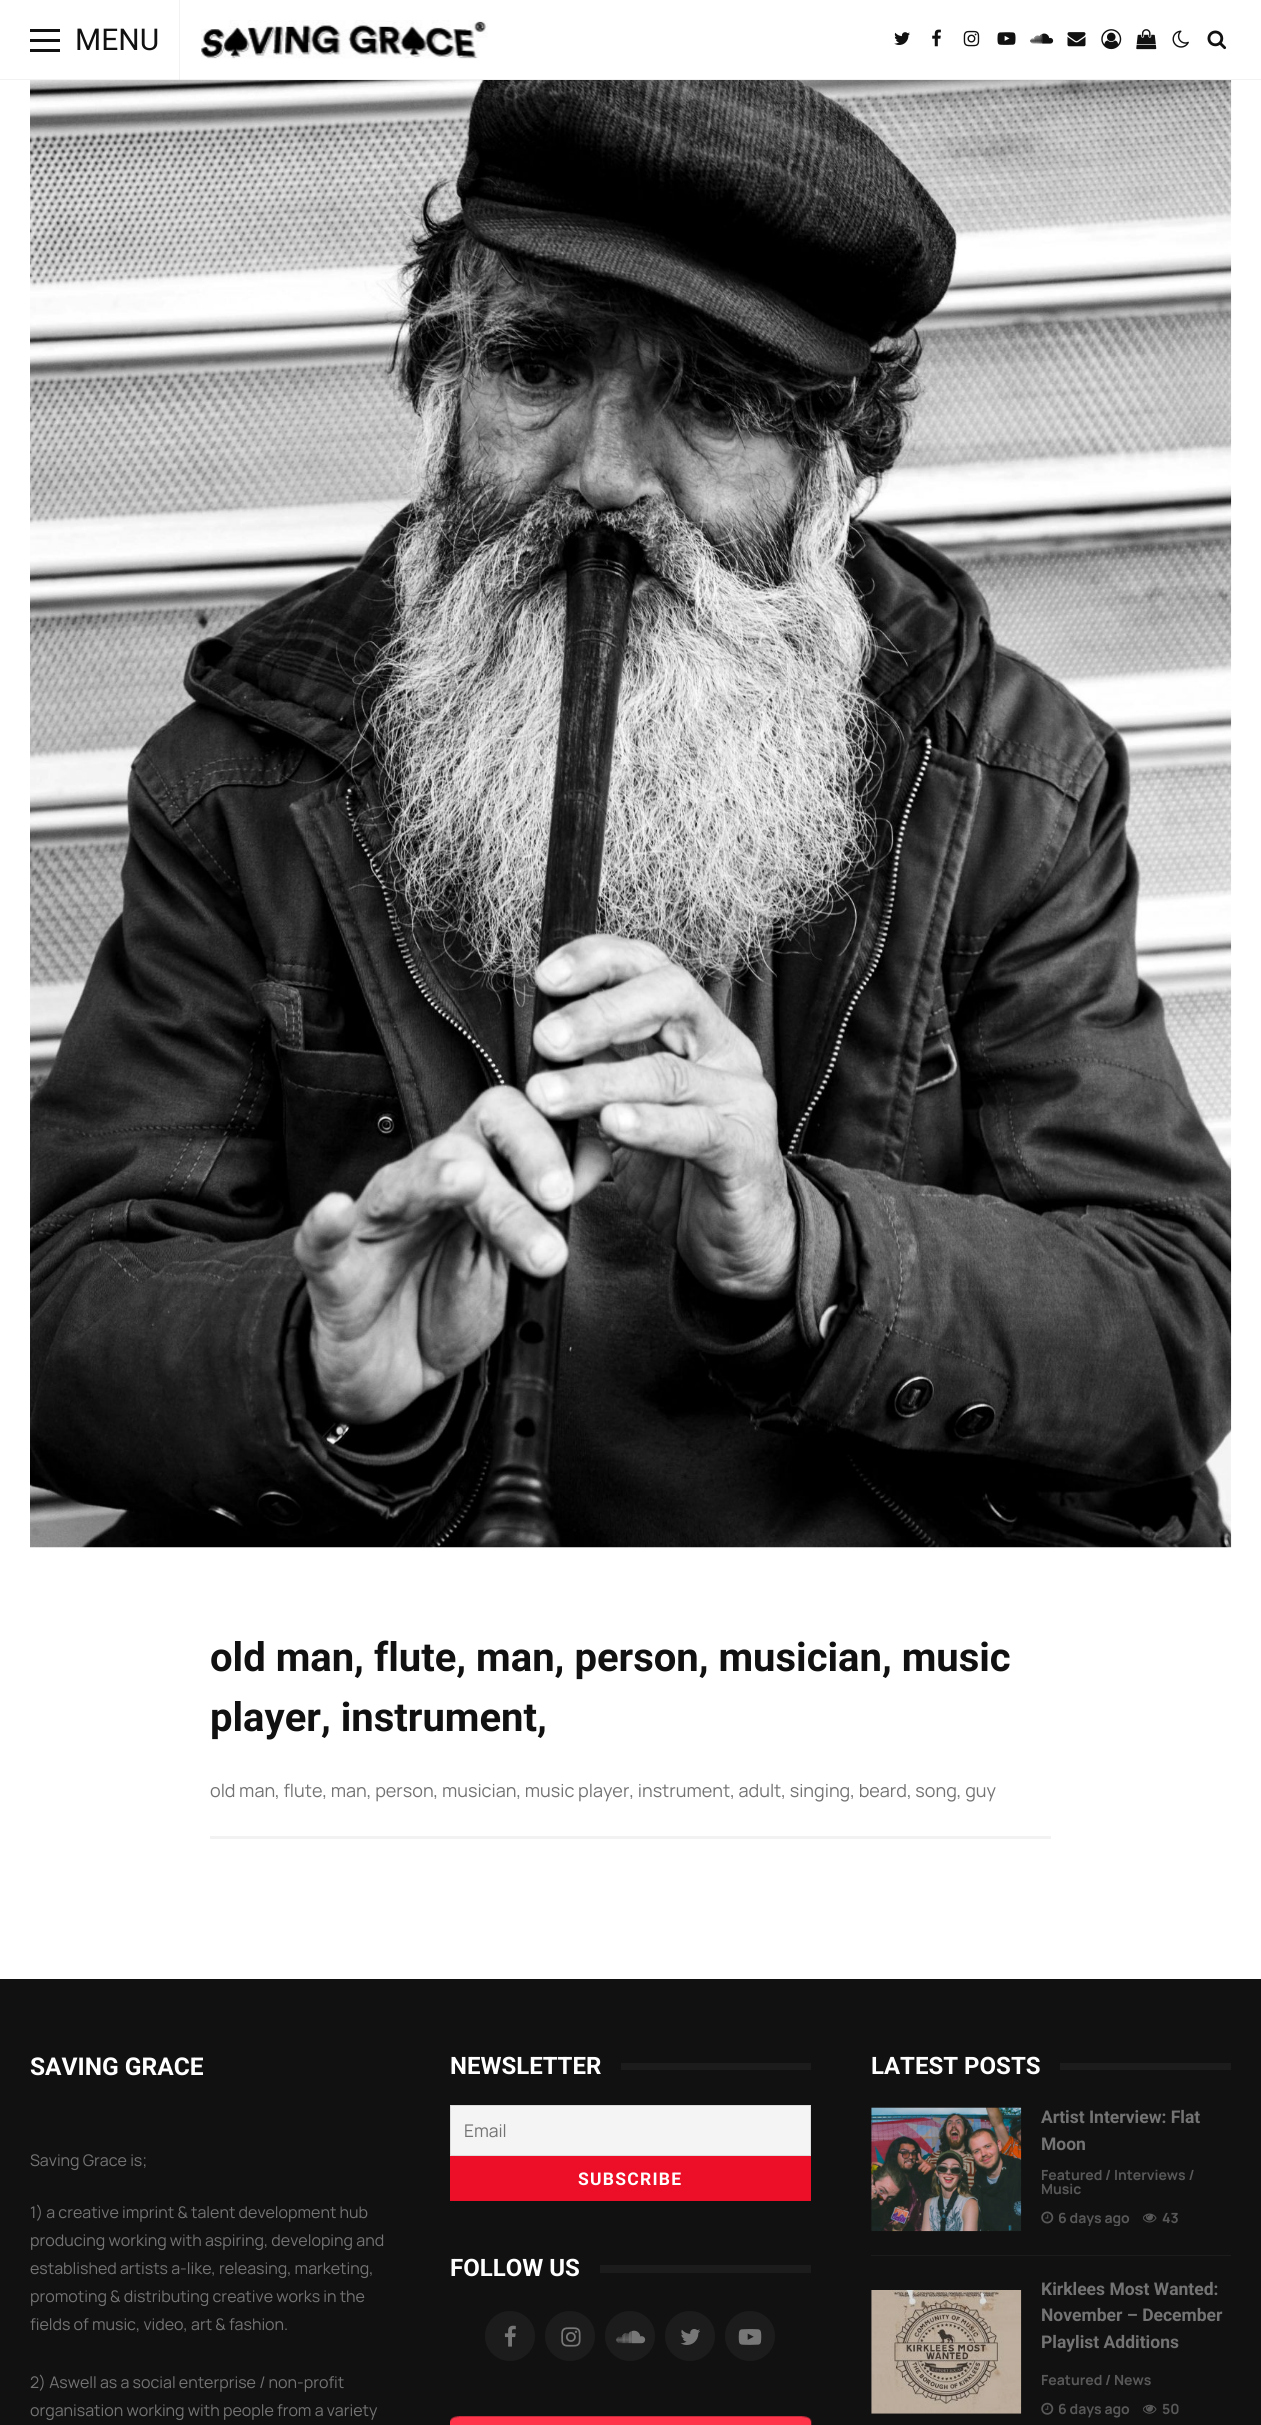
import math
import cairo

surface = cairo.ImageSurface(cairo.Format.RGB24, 1261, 2425)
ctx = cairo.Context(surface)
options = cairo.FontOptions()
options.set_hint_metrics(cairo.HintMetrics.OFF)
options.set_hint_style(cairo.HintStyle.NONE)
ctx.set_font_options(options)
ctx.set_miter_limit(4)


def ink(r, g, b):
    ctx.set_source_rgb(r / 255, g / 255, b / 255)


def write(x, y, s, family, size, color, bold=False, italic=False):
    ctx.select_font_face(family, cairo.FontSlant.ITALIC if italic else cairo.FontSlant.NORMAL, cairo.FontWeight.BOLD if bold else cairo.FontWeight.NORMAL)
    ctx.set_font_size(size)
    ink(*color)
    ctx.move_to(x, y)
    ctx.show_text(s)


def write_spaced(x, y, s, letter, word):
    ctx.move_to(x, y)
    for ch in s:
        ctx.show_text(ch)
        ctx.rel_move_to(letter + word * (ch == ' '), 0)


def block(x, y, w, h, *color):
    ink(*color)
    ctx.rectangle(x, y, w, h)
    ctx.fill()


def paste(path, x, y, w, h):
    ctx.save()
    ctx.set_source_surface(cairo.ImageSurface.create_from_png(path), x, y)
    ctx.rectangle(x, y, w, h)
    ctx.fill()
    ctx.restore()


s1 = dict(family="Roboto", size=30, color=(17, 17, 17))
s2 = dict(family="Roboto", size=40, color=(17, 17, 17), bold=True)
s3 = dict(family="Manrope", size=18, color=(115, 115, 115))
s4 = dict(family="Roboto", size=24.5, color=(255, 255, 255), bold=True)
s5 = dict(family="Manrope", size=16, color=(115, 115, 115))
s6 = dict(family="Roboto", size=24, color=(255, 255, 255), bold=True)
s7 = dict(family="Manrope", size=17.5, color=(115, 115, 115))
s8 = dict(family="Roboto", size=17.5, color=(115, 115, 115), bold=True)
s9 = dict(family="Manrope", size=14, color=(88, 88, 88), bold=True)

ink(255, 255, 255)
ctx.paint()
block(179, 0, 1, 80, 242, 242, 242)
block(0, 79, 1261, 1, 242, 242, 242)
block(179, 79, 1, 1, 231, 231, 231)
block(30, 39, 30, 3, 17, 17, 17)
block(30, 29, 30, 3, 17, 17, 17)
block(30, 49, 30, 3, 17, 17, 17)
write(75, 50, "MENU", **s1)
paste("pic1.png", 201, 20, 287, 39)
paste("pic2.png", 894, 32, 16, 13)
paste("pic3.png", 932, 29, 9, 18)
paste("pic4.png", 963, 30, 17, 17)
paste("pic5.png", 997, 32, 19, 13)
paste("pic6.png", 1030, 33, 24, 11)
paste("pic7.png", 1067, 32, 19, 15)
paste("pic8.png", 1101, 29, 21, 21)
paste("pic9.png", 1136, 29, 21, 21)
paste("pic10.png", 1172, 30, 17, 18)
paste("pic11.png", 1207, 30, 20, 20)
paste("pic12.png", 30, 80, 1202, 1468)
write(210, 1671, "old man, flute, man, person, musician, music", **s2)
write(210, 1731, "player, instrument,", **s2)
write(210, 1797, "old man, flute, man, person, musician, music player, instrument, adult, singing, beard, song, guy", **s3)
block(210, 1836, 841, 3, 242, 242, 242)
block(0, 1979, 1261, 446, 17, 17, 17)
block(871, 2290, 150, 124, 15, 18, 20)
block(871, 2108, 1, 123, 15, 18, 20)
write(30, 2075, "SAVING GRACE", **s4)
write(30, 2166, "Saving Grace is;", **s5)
write(30, 2218, "1) a creative imprint & talent development hub", **s5)
write(30, 2246, "producing working with aspiring, developing and", **s5)
write(30, 2274, "established artists a-like, releasing, marketing,", **s5)
write(30, 2302, "promoting & distributing creative works in the", **s5)
write(30, 2330, "fields of music, video, art & fashion.", **s5)
write(30, 2388, "2) Aswell as a social enterprise / non-profit", **s5)
write(30, 2416, "organisation working with people from a variety", **s5)
write(450, 2074, "NEWSLETTER", **s6)
block(621, 2063, 190, 7, 28, 28, 28)
ink(244, 244, 244)
ctx.rectangle(450.5, 2105.5, 360, 50)
ctx.fill_preserve()
ink(221, 221, 221)
ctx.set_line_width(1)
ctx.stroke()
write(464, 2137, "Email", **s7)
block(450, 2156, 361, 45, 237, 14, 40)
ctx.select_font_face("Roboto", cairo.FontSlant.NORMAL, cairo.FontWeight.BOLD)
ink(255, 255, 255)
write_spaced(578, 2185, "SUBSCRIBE", 1.25, 0)
write(450, 2276, "FOLLOW US", **s6)
block(600, 2265, 211, 8, 28, 28, 28)
ctx.new_path()
ctx.arc(510, 2336, 25, 0, 2 * math.pi)
ctx.fill()
paste("pic13.png", 504, 2325, 12, 22)
ctx.arc(570, 2336, 25, 0, 2 * math.pi)
ctx.fill()
paste("pic14.png", 561, 2327, 20, 20)
ctx.arc(630, 2336, 25, 0, 2 * math.pi)
ctx.fill()
paste("pic15.png", 616, 2330, 30, 14)
ctx.arc(690, 2336, 25, 0, 2 * math.pi)
ctx.fill()
paste("pic16.png", 680, 2329, 20, 16)
ctx.arc(750, 2336, 25, 0, 2 * math.pi)
ctx.fill()
paste("pic17.png", 738, 2329, 24, 16)
paste("pic18.png", 450, 2416, 362, 9)
write(871, 2074, "LATEST POSTS", **s6)
block(1060, 2063, 171, 7, 28, 28, 28)
block(871, 2255, 360, 1, 28, 28, 28)
paste("pic19.png", 871, 2107, 151, 125)
write(1041, 2123, "Artist Interview: Flat", **s8)
write(1041, 2150, "Moon", **s8)
write(1041, 2180, "Featured / Interviews /", **s9)
write(1041, 2194, "Music", **s9)
paste("pic20.png", 1041, 2211, 13, 13)
ctx.save()
ctx.rectangle(1041, 2210, 89, 16)
ctx.clip()
write(1058, 2223, "6 days ago", **s9)
ctx.restore()
paste("pic21.png", 1143, 2213, 14, 10)
write(1162, 2223, "43", **s9)
paste("pic22.png", 871, 2290, 151, 124)
write(1041, 2295, "Kirklees Most Wanted:", **s8)
write(1041, 2321, "November – December", **s8)
write(1041, 2348, "Playlist Additions", **s8)
write(1041, 2385, "Featured / News", **s9)
paste("pic23.png", 1041, 2402, 13, 13)
write(1058, 2414, "6 days ago", **s9)
paste("pic24.png", 1143, 2404, 14, 10)
write(1162, 2414, "50", **s9)
surface.write_to_png("screenshot.png")
